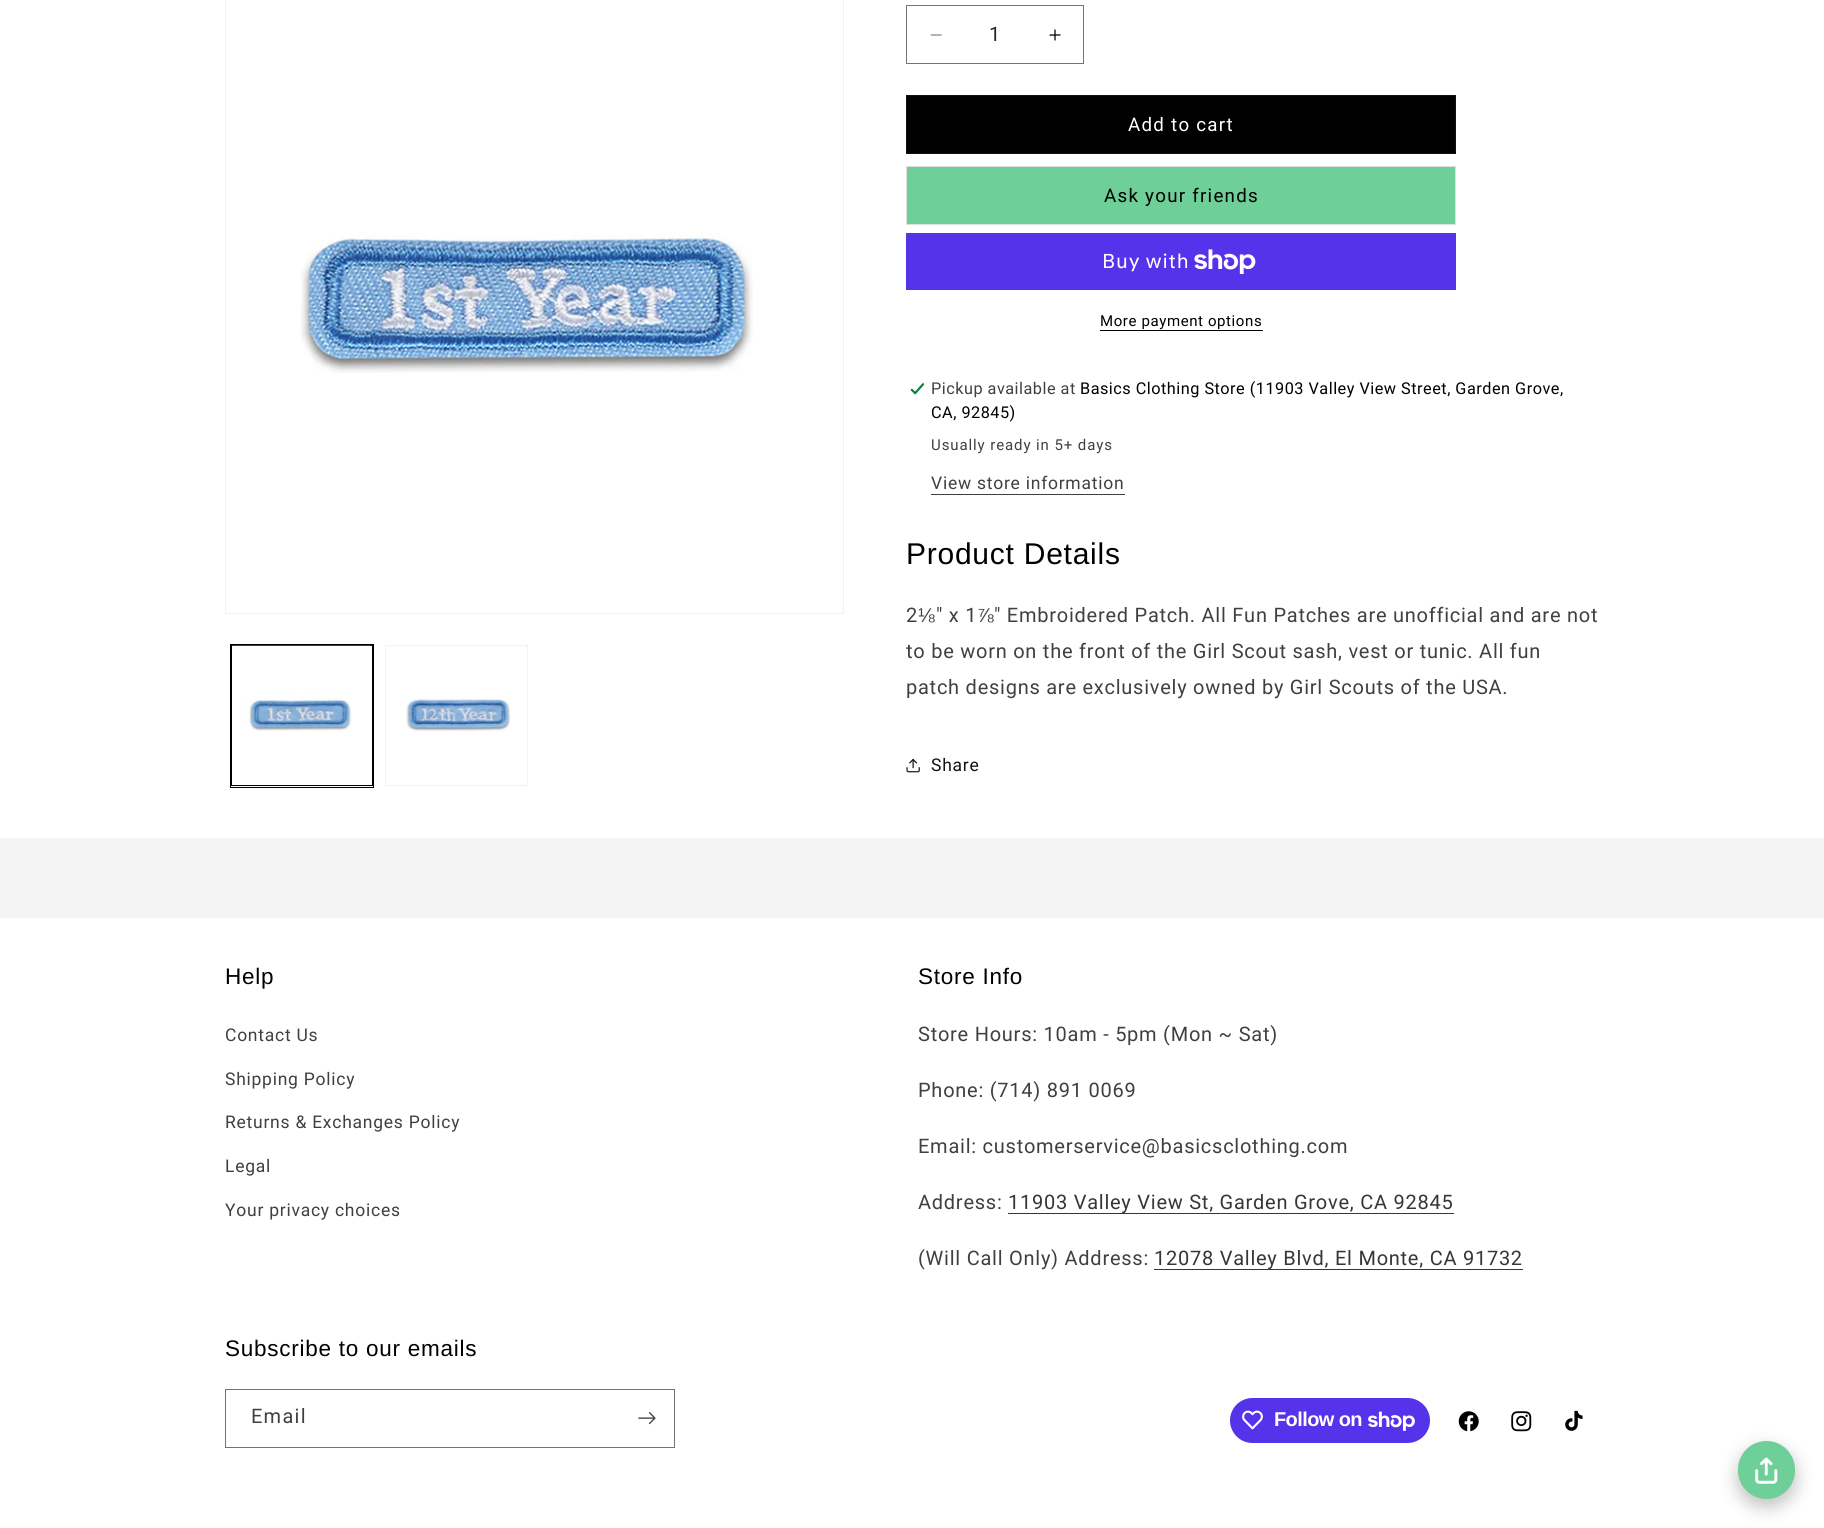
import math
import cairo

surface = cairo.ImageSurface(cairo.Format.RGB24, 1824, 1528)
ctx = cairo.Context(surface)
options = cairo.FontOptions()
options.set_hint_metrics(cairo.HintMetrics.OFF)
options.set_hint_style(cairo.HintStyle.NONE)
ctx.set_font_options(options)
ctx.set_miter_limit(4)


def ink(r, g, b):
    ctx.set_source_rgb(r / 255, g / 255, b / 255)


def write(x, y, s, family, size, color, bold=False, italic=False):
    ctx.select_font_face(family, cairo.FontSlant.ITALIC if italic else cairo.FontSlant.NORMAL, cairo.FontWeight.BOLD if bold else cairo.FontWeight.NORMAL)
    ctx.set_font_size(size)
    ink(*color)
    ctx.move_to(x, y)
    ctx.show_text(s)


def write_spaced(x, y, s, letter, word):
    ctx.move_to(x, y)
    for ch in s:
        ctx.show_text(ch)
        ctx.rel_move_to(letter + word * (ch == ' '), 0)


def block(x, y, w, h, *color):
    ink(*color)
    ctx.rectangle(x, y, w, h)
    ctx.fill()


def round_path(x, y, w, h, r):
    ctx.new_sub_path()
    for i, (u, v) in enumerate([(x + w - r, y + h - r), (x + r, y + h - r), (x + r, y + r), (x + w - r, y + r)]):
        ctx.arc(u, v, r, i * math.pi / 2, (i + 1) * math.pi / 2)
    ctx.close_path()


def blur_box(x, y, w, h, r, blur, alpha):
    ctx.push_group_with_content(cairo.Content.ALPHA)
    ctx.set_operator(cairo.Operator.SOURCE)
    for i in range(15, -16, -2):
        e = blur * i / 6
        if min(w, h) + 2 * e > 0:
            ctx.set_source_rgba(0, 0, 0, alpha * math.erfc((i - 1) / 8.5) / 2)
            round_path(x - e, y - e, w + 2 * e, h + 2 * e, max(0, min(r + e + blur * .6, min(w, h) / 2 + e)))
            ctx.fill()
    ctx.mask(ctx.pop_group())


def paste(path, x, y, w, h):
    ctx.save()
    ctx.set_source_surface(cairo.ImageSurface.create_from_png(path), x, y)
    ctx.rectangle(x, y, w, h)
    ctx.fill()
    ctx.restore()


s1 = dict(family="Roboto", size=20, color=(38, 38, 38))

ink(255, 255, 255)
ctx.paint()
ctx.rectangle(225.5, -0.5, 618, 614)
ink(242, 242, 242)
ctx.set_line_width(1)
ctx.stroke()
paste("pic1.png", 300, 234, 453, 139)
ctx.rectangle(230.5, 644.5, 143, 143)
ink(0, 0, 0)
ctx.stroke()
ctx.rectangle(231.5, 645.5, 141, 140)
ctx.stroke()
paste("pic2.png", 232, 645, 140, 86)
ctx.rectangle(385.5, 645.5, 142, 140)
ink(242, 242, 242)
ctx.stroke()
paste("pic3.png", 406, 698, 105, 34)
paste("pic4.png", 930, 34, 12, 2)
paste("pic5.png", 1049, 29, 12, 12)
ctx.rectangle(906.5, 5.5, 177, 58)
ink(115, 115, 115)
ctx.stroke()
write(989, 41, "1", **s1)
block(907, 96, 548, 57, 0, 0, 0)
ctx.rectangle(906.5, 95.5, 549, 58)
ink(18, 18, 18)
ctx.stroke()
ctx.set_font_size(18.75)
ink(255, 255, 255)
write_spaced(1128, 131, "Add to cart", 1.25, 0)
ink(111, 207, 152)
ctx.rectangle(906.5, 166.5, 549, 58)
ctx.fill_preserve()
ink(223, 223, 223)
ctx.stroke()
ink(0, 0, 0)
write_spaced(1104, 202, "Ask your friends", 1.25, 0)
block(906, 233, 550, 57, 84, 51, 235)
ctx.select_font_face("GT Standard")
ctx.set_font_size(20)
ink(255, 255, 255)
write_spaced(1102, 268, "Buy with", 0.75, 0)
paste("pic6.png", 1194, 249, 62, 25)
ctx.select_font_face("Roboto")
ctx.set_font_size(15)
ink(0, 0, 0)
write_spaced(1100, 326, "More payment options", 0.6, 0)
block(1100, 330, 163, 1, 0, 0, 0)
paste("pic7.png", 910, 382, 15, 13)
ctx.set_font_size(16.25)
ink(64, 64, 64)
write_spaced(931, 394, "Pickup available at", 0.5, 0)
ink(0, 0, 0)
write_spaced(1080, 394, "Basics Clothing Store (11903 Valley View Street, Garden Grove,", 0.5, 0)
write_spaced(931, 418, "CA, 92845)", 0.5, 0)
ctx.set_font_size(15)
ink(64, 64, 64)
write_spaced(931, 450, "Usually ready in 5+ days", 0.9, 0)
ctx.set_font_size(17.5)
write_spaced(931, 489, "View store information", 0.75, 0)
block(931, 494, 194, 1, 64, 64, 64)
ctx.select_font_face("Liberation Sans")
ctx.set_font_size(30)
ink(0, 0, 0)
write_spaced(906, 564, "Product Details", 0.75, 0)
ctx.select_font_face("Roboto")
ctx.set_font_size(20)
ink(64, 64, 64)
write_spaced(906, 622, "2", 0.75, 0)
ctx.select_font_face("Liberation Sans")
write_spaced(918, 622, "⅛", 0.75, 0)
ctx.select_font_face("Roboto")
write_spaced(936, 622, "\" x 1", 0.75, 0)
ctx.select_font_face("Liberation Sans")
write_spaced(977, 622, "⅞", 0.75, 0)
ctx.select_font_face("Roboto")
write_spaced(994, 622, "\" Embroidered Patch. All Fun Patches are unofficial and are not", 0.75, 0)
write_spaced(906, 658, "to be worn on the front of the Girl Scout sash, vest or tunic. All fun", 0.75, 0)
write_spaced(906, 694, "patch designs are exclusively owned by Girl Scouts of the USA.", 0.75, 0)
paste("pic8.png", 906, 758, 14, 15)
ctx.set_font_size(17.5)
ink(18, 18, 18)
write_spaced(931, 771, "Share", 0.75, 0)
block(0, 838, 1824, 80, 243, 243, 243)
ctx.select_font_face("Liberation Sans")
ctx.set_font_size(22.5)
ink(0, 0, 0)
write_spaced(225, 984, "Help", 0.75, 0)
ctx.select_font_face("Roboto")
ctx.set_font_size(17.5)
ink(64, 64, 64)
write_spaced(225, 1041, "Contact Us", 0.75, 0)
write_spaced(225, 1085, "Shipping Policy", 0.75, 0)
write_spaced(225, 1128, "Returns & Exchanges Policy", 0.75, 0)
write_spaced(225, 1172, "Legal", 0.75, 0)
write_spaced(225, 1216, "Your privacy choices", 0.75, 0)
ctx.select_font_face("Liberation Sans")
ctx.set_font_size(22.5)
ink(0, 0, 0)
write_spaced(918, 984, "Store Info", 0.75, 0)
ctx.select_font_face("Roboto")
ctx.set_font_size(20)
ink(64, 64, 64)
write_spaced(918, 1041, "Store Hours: 10am - 5pm (Mon ~ Sat)", 0.75, 0)
write_spaced(918, 1097, "Phone: (714) 891 0069", 0.75, 0)
write_spaced(918, 1153, "Email: customerservice@basicsclothing.com", 0.75, 0)
write_spaced(918, 1209, "Address:", 0.75, 0)
block(1008, 1213, 446, 1, 54, 54, 54)
write_spaced(1008, 1209, "11903 Valley View St, Garden Grove, CA 92845", 0.75, 0)
ink(64, 64, 64)
write_spaced(918, 1265, "(Will Call Only) Address:", 0.75, 0)
block(1154, 1269, 369, 1, 54, 54, 54)
write_spaced(1154, 1265, "12078 Valley Blvd, El Monte, CA 91732", 0.75, 0)
ctx.select_font_face("Liberation Sans")
ctx.set_font_size(22.5)
ink(0, 0, 0)
write_spaced(225, 1356, "Subscribe to our emails", 0.75, 0)
ctx.rectangle(225.5, 1389.5, 449, 58)
ink(115, 115, 115)
ctx.stroke()
ctx.select_font_face("Roboto")
ctx.set_font_size(20)
ink(64, 64, 64)
write_spaced(251, 1423, "Email", 1.25, 0)
paste("pic9.png", 638, 1412, 18, 13)
ink(84, 51, 235)
round_path(1230, 1398, 200, 45, 22.5)
ctx.fill()
paste("pic10.png", 1242, 1410, 21, 20)
ctx.select_font_face("Liberation Sans", cairo.FontSlant.NORMAL, cairo.FontWeight.BOLD)
ink(255, 255, 255)
write_spaced(1274, 1426, "Follow on", -0.6, 0)
paste("pic11.png", 1368, 1411, 47, 20)
paste("pic12.png", 1458, 1411, 21, 21)
paste("pic13.png", 1511, 1411, 21, 21)
paste("pic14.png", 1565, 1410, 18, 21)
ink(0, 0, 0)
blur_box(1738, 1449, 57, 57, 28.5, 9, 0.25)
ink(111, 207, 152)
round_path(1738, 1441, 57, 58, 28.5)
ctx.fill()
paste("pic15.png", 1755, 1457, 23, 27)
surface.write_to_png("screenshot.png")
